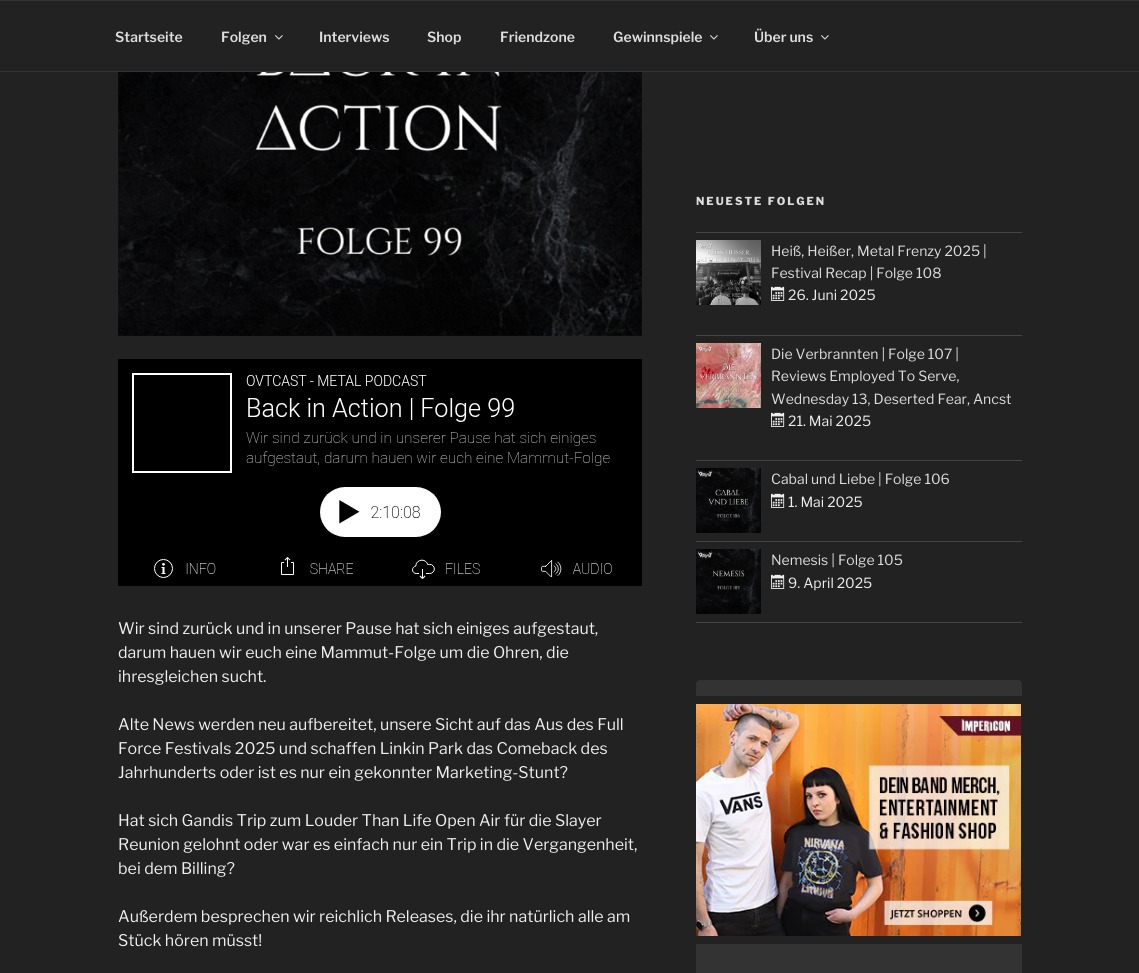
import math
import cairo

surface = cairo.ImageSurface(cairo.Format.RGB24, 1139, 973)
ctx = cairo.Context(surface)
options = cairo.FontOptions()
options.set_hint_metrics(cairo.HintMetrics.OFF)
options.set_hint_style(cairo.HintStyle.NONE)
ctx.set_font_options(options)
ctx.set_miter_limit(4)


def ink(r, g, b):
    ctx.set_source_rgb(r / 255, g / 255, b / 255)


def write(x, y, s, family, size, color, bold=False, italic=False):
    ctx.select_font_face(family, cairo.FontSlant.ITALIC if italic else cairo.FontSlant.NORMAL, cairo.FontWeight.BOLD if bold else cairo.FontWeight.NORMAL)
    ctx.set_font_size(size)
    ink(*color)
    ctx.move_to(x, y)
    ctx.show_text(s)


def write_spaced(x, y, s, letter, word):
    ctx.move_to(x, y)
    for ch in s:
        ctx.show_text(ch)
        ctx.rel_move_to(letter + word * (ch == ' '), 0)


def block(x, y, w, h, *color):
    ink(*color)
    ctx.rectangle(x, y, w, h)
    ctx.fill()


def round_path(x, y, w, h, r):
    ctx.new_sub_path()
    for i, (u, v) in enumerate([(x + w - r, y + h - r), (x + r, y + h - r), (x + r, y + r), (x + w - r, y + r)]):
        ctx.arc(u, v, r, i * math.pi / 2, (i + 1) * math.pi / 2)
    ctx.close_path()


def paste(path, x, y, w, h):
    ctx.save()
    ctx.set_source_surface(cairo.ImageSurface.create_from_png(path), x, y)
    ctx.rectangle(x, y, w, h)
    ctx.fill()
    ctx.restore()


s1 = dict(family="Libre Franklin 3 Thin", size=14, color=(221, 221, 221))
s2 = dict(family="Libre Franklin Thin", size=14, color=(221, 221, 221))
s3 = dict(family="Libre Franklin Thin", size=14, color=(238, 238, 238))
s4 = dict(family="Libre Franklin Thin", size=16, color=(238, 238, 238))

ink(34, 34, 34)
ctx.paint()
block(0, 0, 1139, 1, 51, 51, 51)
block(0, 71, 1139, 1, 51, 51, 51)
write(115, 42, "Startseite", **s1)
write(221, 42, "Folgen", **s1)
paste("pic1.png", 275, 35, 8, 5)
write(319, 42, "Interviews", **s1)
write(427, 42, "Shop", **s1)
write(500, 42, "Friendzone", **s1)
write(613, 42, "Gewinnspiele", **s1)
paste("pic1.png", 710, 35, 8, 5)
write(754, 42, "Über uns", **s1)
paste("pic1.png", 821, 35, 8, 5)
ctx.select_font_face("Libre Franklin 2 Thin")
ctx.set_font_size(11)
write_spaced(696, 205, "NEUESTE FOLGEN", 2, 0)
block(696, 232, 326, 1, 68, 68, 68)
block(696, 335, 326, 1, 68, 68, 68)
paste("pic2.png", 696, 240, 65, 65)
write(771, 256, "Heiß, Heißer, Metal Frenzy 2025 |", **s2)
write(771, 278, "Festival Recap | Folge 108", **s2)
paste("pic3.png", 771, 286, 14, 15)
write(788, 300, "26. Juni 2025", **s3)
block(696, 460, 326, 1, 68, 68, 68)
paste("pic4.png", 696, 343, 65, 65)
write(771, 359, "Die Verbrannten | Folge 107 |", **s2)
write(771, 381, "Reviews Employed To Serve,", **s2)
write(771, 404, "Wednesday 13, Deserted Fear, Ancst", **s2)
paste("pic3.png", 771, 412, 14, 15)
write(788, 426, "21. Mai 2025", **s3)
block(696, 541, 326, 1, 68, 68, 68)
paste("pic5.png", 696, 468, 65, 65)
write(771, 484, "Cabal und Liebe | Folge 106", **s2)
paste("pic3.png", 771, 493, 14, 15)
write(788, 507, "1. Mai 2025", **s3)
block(696, 622, 326, 1, 68, 68, 68)
paste("pic6.png", 696, 549, 65, 65)
write(771, 565, "Nemesis | Folge 105", **s2)
paste("pic3.png", 771, 574, 14, 15)
write(788, 588, "9. April 2025", **s3)
ink(51, 51, 51)
round_path(696, 680, 326, 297, 4)
ctx.fill()
ink(34, 34, 34)
ctx.new_path()
ctx.move_to(696, 704)
ctx.line_to(696, 696)
ctx.line_to(1022, 696)
ctx.line_to(1022, 944)
ctx.line_to(696, 944)
ctx.line_to(696, 936)
ctx.line_to(1021, 936)
ctx.line_to(1021, 704)
ctx.close_path()
ctx.fill()
paste("pic7.png", 696, 704, 325, 232)
paste("pic8.png", 118, 72, 524, 264)
paste("pic9.png", 118, 359, 524, 227)
write(118, 634, "Wir sind zurück und in unserer Pause hat sich einiges aufgestaut,", **s4)
write(118, 658, "darum hauen wir euch eine Mammut-Folge um die Ohren, die", **s4)
write(118, 682, "ihresgleichen sucht.", **s4)
write(118, 730, "Alte News werden neu aufbereitet, unsere Sicht auf das Aus des Full", **s4)
write(118, 754, "Force Festivals 2025 und schaffen Linkin Park das Comeback des", **s4)
write(118, 778, "Jahrhunderts oder ist es nur ein gekonnter Marketing-Stunt?", **s4)
write(118, 826, "Hat sich Gandis Trip zum Louder Than Life Open Air für die Slayer", **s4)
write(118, 850, "Reunion gelohnt oder war es einfach nur ein Trip in die Vergangenheit,", **s4)
write(118, 874, "bei dem Billing?", **s4)
write(118, 922, "Außerdem besprechen wir reichlich Releases, die ihr natürlich alle am", **s4)
write(118, 946, "Stück hören müsst!", **s4)
surface.write_to_png("screenshot.png")
